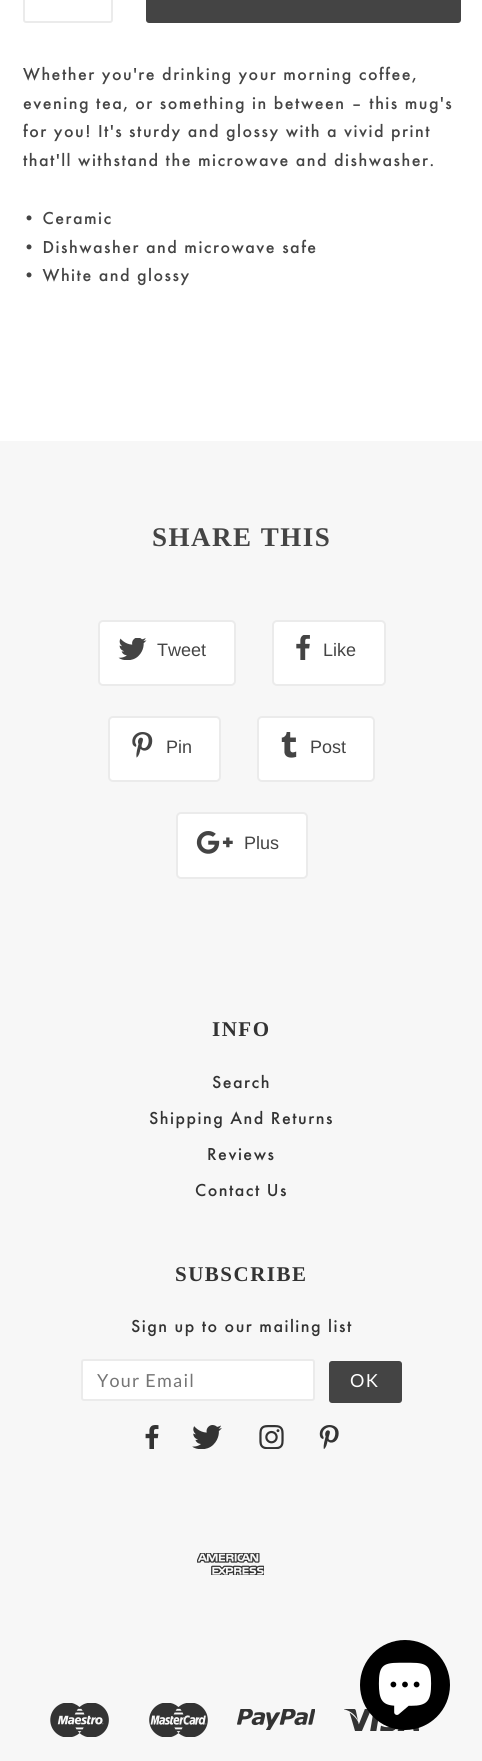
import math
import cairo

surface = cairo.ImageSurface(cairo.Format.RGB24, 482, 1761)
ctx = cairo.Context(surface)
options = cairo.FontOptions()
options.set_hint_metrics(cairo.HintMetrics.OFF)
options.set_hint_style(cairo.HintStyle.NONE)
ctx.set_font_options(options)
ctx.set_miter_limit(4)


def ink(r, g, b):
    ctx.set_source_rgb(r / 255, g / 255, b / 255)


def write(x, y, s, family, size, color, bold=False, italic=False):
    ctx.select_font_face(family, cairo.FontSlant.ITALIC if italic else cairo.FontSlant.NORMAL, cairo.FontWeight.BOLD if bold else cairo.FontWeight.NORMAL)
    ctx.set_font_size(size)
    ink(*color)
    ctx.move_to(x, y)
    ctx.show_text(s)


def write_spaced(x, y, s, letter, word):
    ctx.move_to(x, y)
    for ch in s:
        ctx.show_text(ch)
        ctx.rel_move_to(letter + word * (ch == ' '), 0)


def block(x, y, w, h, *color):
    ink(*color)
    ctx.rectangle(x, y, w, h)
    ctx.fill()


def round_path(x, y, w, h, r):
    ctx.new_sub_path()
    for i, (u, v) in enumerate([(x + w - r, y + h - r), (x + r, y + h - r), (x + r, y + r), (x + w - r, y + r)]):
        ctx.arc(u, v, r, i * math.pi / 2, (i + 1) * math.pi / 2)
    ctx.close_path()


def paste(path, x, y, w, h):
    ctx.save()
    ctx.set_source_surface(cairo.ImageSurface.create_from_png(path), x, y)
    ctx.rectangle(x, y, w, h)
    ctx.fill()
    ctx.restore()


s1 = dict(family="Liberation Sans", size=18, color=(68, 68, 68))

ink(255, 255, 255)
ctx.paint()
round_path(24, -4, 88, 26, 2)
ink(235, 235, 235)
ctx.stroke()
ink(68, 68, 68)
round_path(146, -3, 315, 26, 3)
ctx.fill()
ctx.select_font_face("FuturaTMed")
ctx.set_font_size(18)
write_spaced(23, 80, "Whether you're drinking your morning coffee,", 1.5, 0)
write_spaced(23, 109, "evening tea, or something in between – this mug's", 1.5, 0)
write_spaced(23, 137, "for you! It's sturdy and glossy with a vivid print", 1.5, 0)
write_spaced(23, 166, "that'll withstand the microwave and dishwasher.", 1.5, 0)
write_spaced(23, 224, "• Ceramic", 1.5, 0)
write_spaced(23, 253, "• Dishwasher and microwave safe", 1.5, 0)
write_spaced(23, 281, "• White and glossy", 1.5, 0)
block(0, 441, 482, 1320, 247, 247, 247)
ctx.select_font_face("Liberation Serif", cairo.FontSlant.NORMAL, cairo.FontWeight.BOLD)
ctx.set_font_size(27)
ink(68, 68, 68)
write_spaced(152, 546, "SHARE THIS", 1.5, 0)
ink(255, 255, 255)
round_path(99, 621, 136, 64, 4)
ctx.fill_preserve()
ink(235, 235, 235)
ctx.stroke()
paste("pic1.png", 118, 638, 29, 22)
write(157, 656, "Tweet", **s1)
ink(255, 255, 255)
round_path(273, 621, 112, 64, 4)
ctx.fill_preserve()
ink(235, 235, 235)
ctx.stroke()
paste("pic2.png", 296, 635, 14, 25)
write(323, 656, "Like", **s1)
ink(255, 255, 255)
round_path(109, 717, 111, 64, 4)
ctx.fill_preserve()
ink(235, 235, 235)
ctx.stroke()
paste("pic3.png", 132, 732, 21, 26)
write(166, 753, "Pin", **s1)
ink(255, 255, 255)
round_path(258, 717, 116, 64, 4)
ctx.fill_preserve()
ink(235, 235, 235)
ctx.stroke()
paste("pic4.png", 281, 732, 16, 26)
write(310, 753, "Post", **s1)
ink(255, 255, 255)
round_path(177, 813, 130, 65, 4)
ctx.fill_preserve()
ink(235, 235, 235)
ctx.stroke()
paste("pic5.png", 196, 831, 37, 23)
write(244, 849, "Plus", **s1)
ctx.select_font_face("Liberation Serif", cairo.FontSlant.NORMAL, cairo.FontWeight.BOLD)
ctx.set_font_size(21)
ink(51, 51, 51)
write_spaced(212, 1036, "INFO", 1.5, 0)
ctx.select_font_face("FuturaTMed")
ctx.set_font_size(18)
write_spaced(212, 1088, "Search", 1.5, 0)
write_spaced(149, 1124, "Shipping And Returns", 1.5, 0)
write_spaced(207, 1160, "Reviews", 1.5, 0)
write_spaced(195, 1196, "Contact Us", 1.5, 0)
ctx.select_font_face("Liberation Serif", cairo.FontSlant.NORMAL, cairo.FontWeight.BOLD)
ctx.set_font_size(21)
write_spaced(175, 1281, "SUBSCRIBE", 1.5, 0)
ctx.select_font_face("FuturaTMed")
ctx.set_font_size(18)
write_spaced(131, 1332, "Sign up to our mailing list", 1.5, 0)
ink(255, 255, 255)
round_path(82, 1360, 232, 40, 2)
ctx.fill_preserve()
ink(235, 235, 235)
ctx.stroke()
ctx.select_font_face("Lato")
ink(117, 117, 117)
write_spaced(97, 1387, "Your Email", 1.25, 0)
ink(68, 68, 68)
round_path(329, 1361, 73, 42, 3)
ctx.fill()
ink(255, 255, 255)
write_spaced(350, 1387, "OK", 1.5, 0)
paste("pic6.png", 145, 1425, 14, 24)
paste("pic7.png", 192, 1425, 30, 24)
paste("pic8.png", 259, 1425, 25, 24)
paste("pic9.png", 319, 1425, 20, 24)
paste("pic10.png", 197, 1553, 67, 22)
paste("pic11.png", 50, 1703, 59, 34)
paste("pic12.png", 149, 1703, 59, 34)
paste("pic13.png", 237, 1709, 78, 21)
paste("pic14.png", 344, 1709, 75, 22)
ink(0, 0, 0)
ctx.arc(405, 1685, 45, 0, 2 * math.pi)
ctx.fill()
paste("pic15.png", 378, 1662, 54, 53)
surface.write_to_png("screenshot.png")
